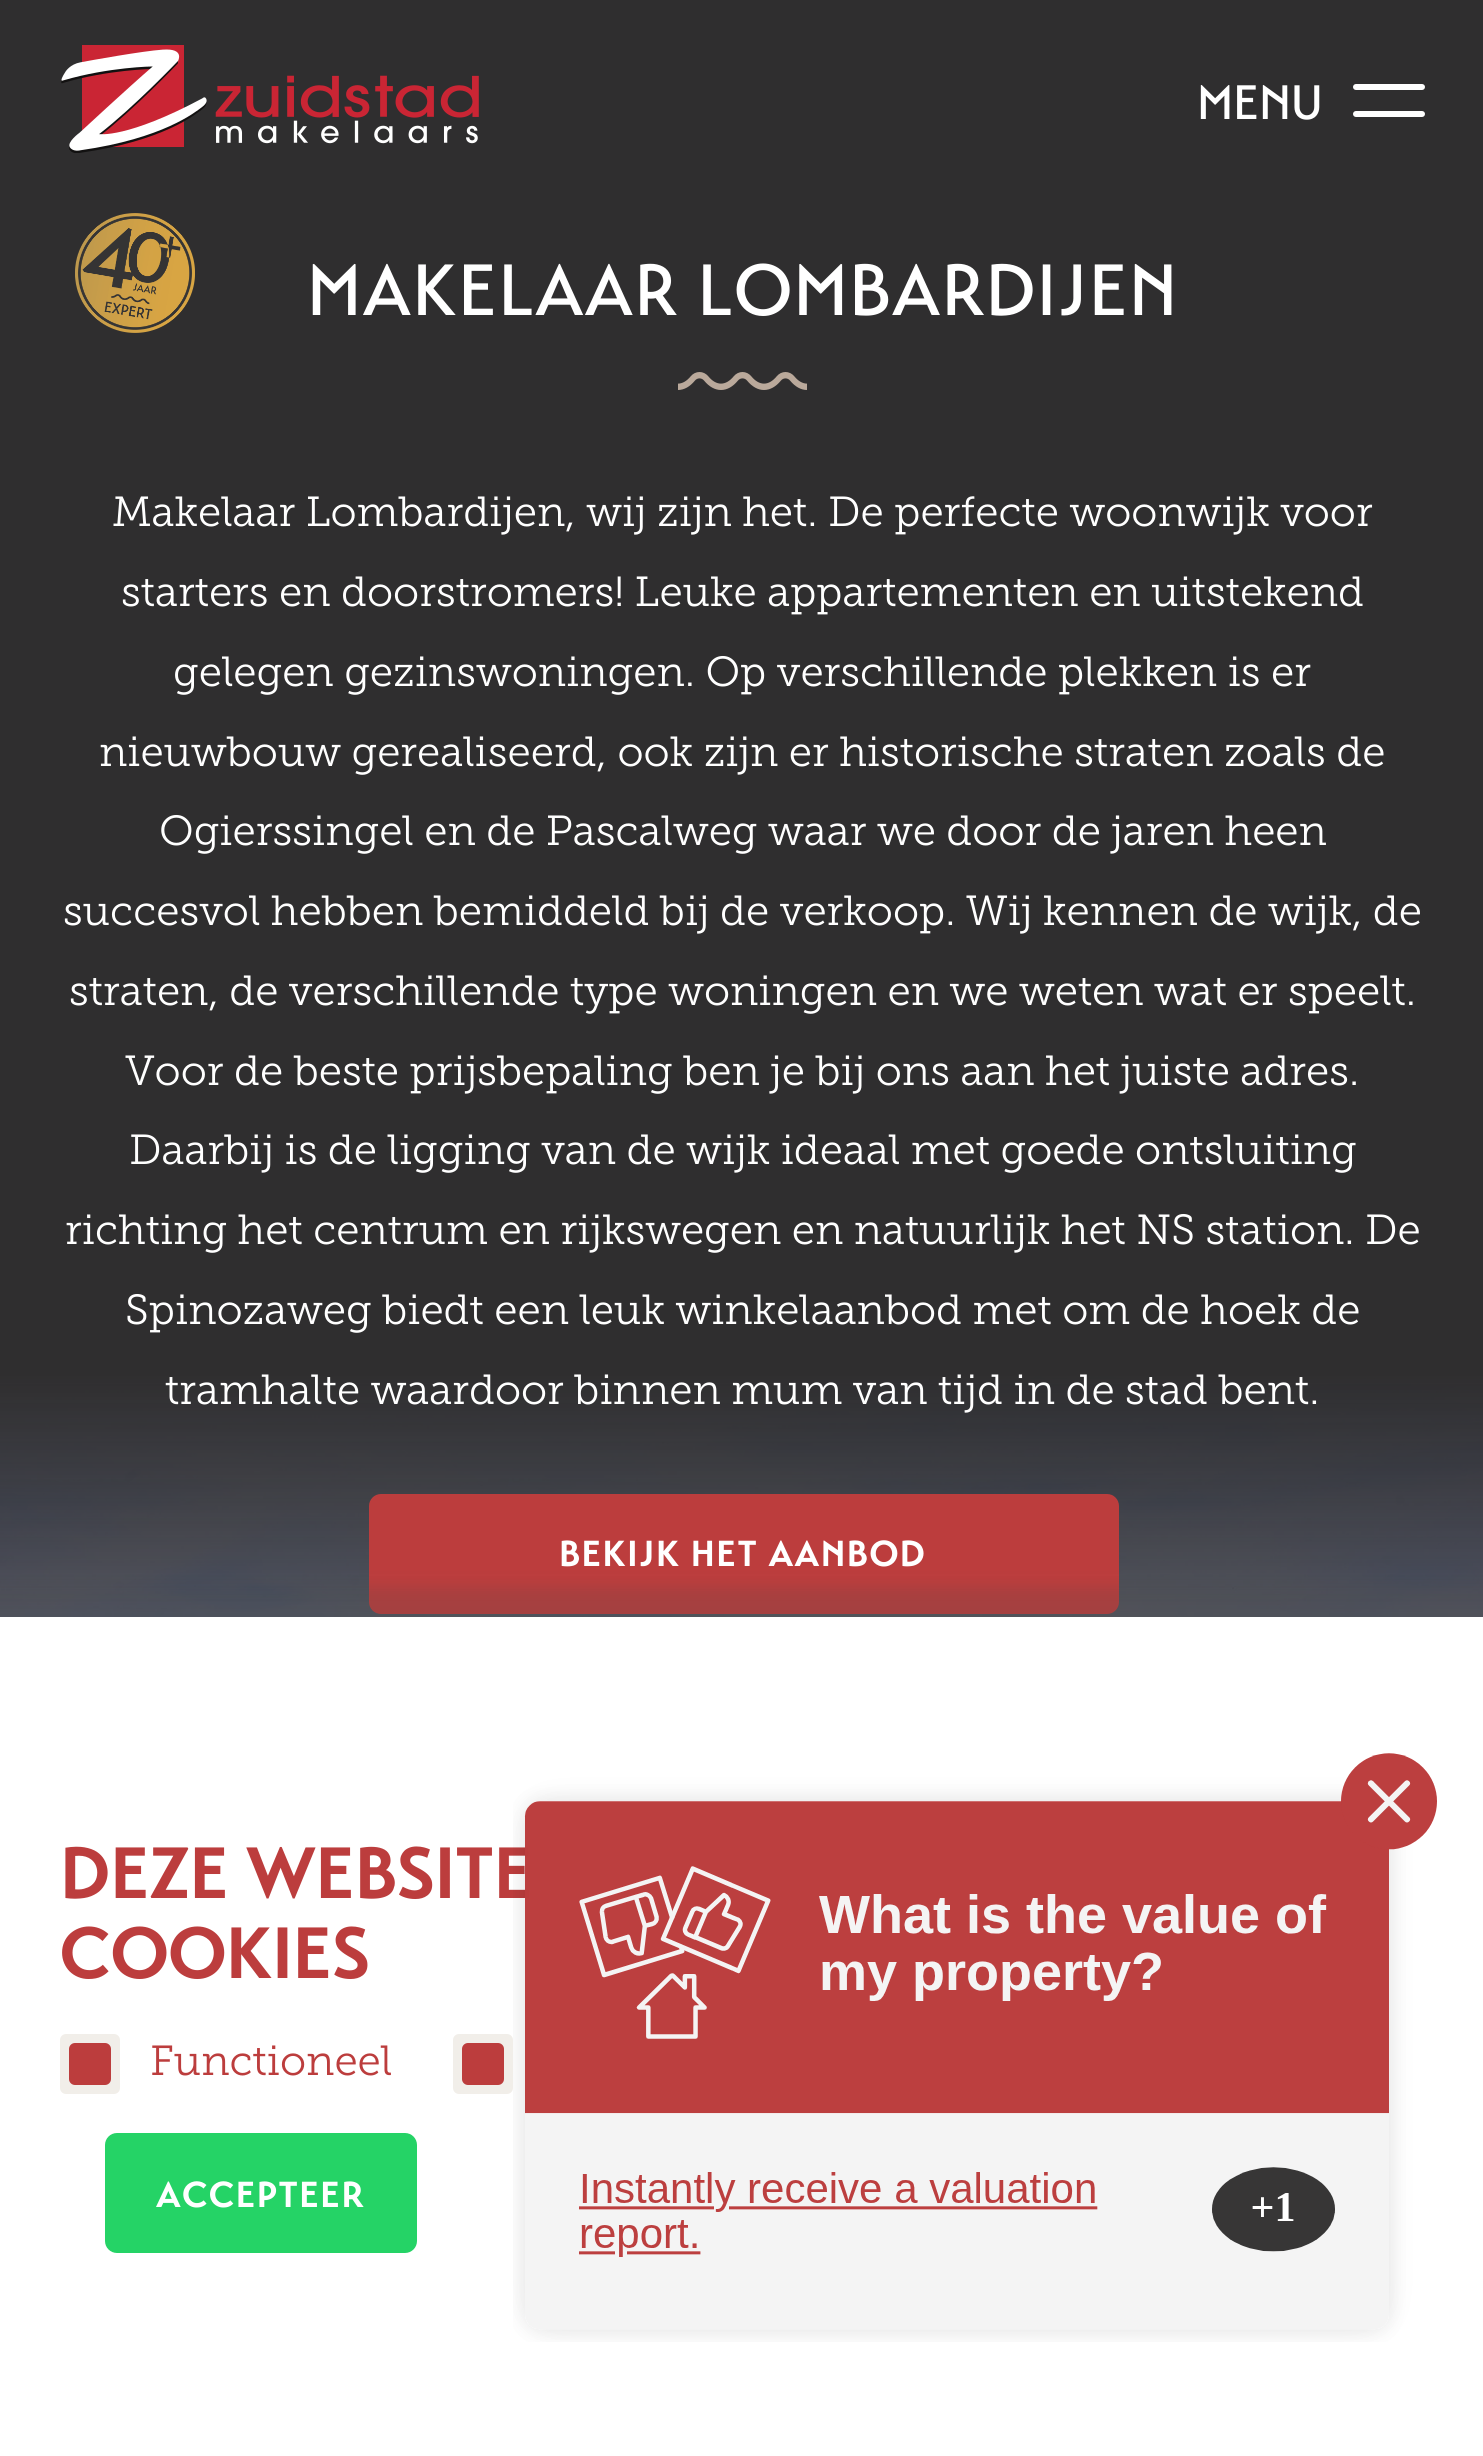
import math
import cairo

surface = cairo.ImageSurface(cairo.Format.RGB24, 1483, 2456)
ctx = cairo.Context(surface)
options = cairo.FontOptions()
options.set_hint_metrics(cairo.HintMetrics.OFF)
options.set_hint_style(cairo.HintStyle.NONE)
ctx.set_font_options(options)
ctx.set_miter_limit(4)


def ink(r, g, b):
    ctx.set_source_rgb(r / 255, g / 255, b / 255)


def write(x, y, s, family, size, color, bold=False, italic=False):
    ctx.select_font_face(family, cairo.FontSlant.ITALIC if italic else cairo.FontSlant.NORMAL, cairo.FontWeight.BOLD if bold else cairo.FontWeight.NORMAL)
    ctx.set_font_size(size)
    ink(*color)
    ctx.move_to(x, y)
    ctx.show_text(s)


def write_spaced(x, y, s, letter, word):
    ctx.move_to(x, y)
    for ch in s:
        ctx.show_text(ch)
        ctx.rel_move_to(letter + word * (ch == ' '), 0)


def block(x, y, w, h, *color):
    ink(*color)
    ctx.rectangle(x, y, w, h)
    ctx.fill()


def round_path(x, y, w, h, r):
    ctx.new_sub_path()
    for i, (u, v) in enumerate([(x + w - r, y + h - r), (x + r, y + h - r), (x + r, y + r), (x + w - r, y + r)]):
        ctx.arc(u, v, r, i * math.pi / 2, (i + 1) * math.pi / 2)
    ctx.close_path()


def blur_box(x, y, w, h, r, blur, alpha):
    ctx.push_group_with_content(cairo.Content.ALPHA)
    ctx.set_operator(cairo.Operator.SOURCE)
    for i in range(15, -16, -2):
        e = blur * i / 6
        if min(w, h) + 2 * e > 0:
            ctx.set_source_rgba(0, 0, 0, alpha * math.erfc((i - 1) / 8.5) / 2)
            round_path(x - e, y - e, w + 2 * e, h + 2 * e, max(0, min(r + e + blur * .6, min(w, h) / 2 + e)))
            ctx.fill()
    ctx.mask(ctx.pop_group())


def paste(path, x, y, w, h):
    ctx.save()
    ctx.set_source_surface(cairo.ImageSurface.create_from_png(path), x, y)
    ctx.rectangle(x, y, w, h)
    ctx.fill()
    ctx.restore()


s1 = dict(family="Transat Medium", size=48, color=(255, 255, 255))
s2 = dict(family="Museo Slab", size=42, color=(255, 255, 255))
s3 = dict(family="Transat", size=72, color=(188, 61, 61), bold=True)
s4 = dict(family="Museo Slab", size=42, color=(188, 61, 61))

ink(47, 46, 47)
ctx.paint()
paste("pic1.png", 61, 45, 418, 108)
write(1197, 119, "MENU", **s1)
round_path(1353, 84, 72, 6, 3)
ctx.fill()
round_path(1353, 111, 72, 6, 3)
ctx.fill()
paste("pic2.png", 75, 213, 120, 120)
ctx.set_font_size(72)
write_spaced(307, 315, "MAKELAAR LOMBARDIJEN", 1.5, 0)
paste("pic3.png", 678, 372, 129, 18)
write(112, 526, "Makelaar Lombardijen, wij zijn het. De perfecte woonwijk voor", **s2)
write(121, 606, "starters en doorstromers! Leuke appartementen en uitstekend", **s2)
write(173, 686, "gelegen gezinswoningen. Op verschillende plekken is er", **s2)
write(99, 766, "nieuwbouw gerealiseerd, ook zijn er historische straten zoals de", **s2)
write(159, 845, "Ogierssingel en de Pascalweg waar we door de jaren heen", **s2)
write(63, 925, "succesvol hebben bemiddeld bij de verkoop. Wij kennen de wijk, de", **s2)
write(69, 1005, "straten, de verschillende type woningen en we weten wat er speelt.", **s2)
write(125, 1085, "Voor de beste prijsbepaling ben je bij ons aan het juiste adres.", **s2)
write(129, 1164, "Daarbij is de ligging van de wijk ideaal met goede ontsluiting", **s2)
write(65, 1244, "richting het centrum en rijkswegen en natuurlijk het NS station. De", **s2)
write(125, 1324, "Spinozaweg biedt een leuk winkelaanbod met om de hoek de", **s2)
paste("pic4.png", 0, 1374, 1483, 243)
write(165, 1404, "tramhalte waardoor binnen mum van tijd in de stad bent.", **s2)
ink(188, 61, 61)
round_path(372, 1497, 744, 114, 9)
ctx.fill_preserve()
ctx.set_line_width(6)
ctx.stroke()
ctx.select_font_face("Transat", cairo.FontSlant.NORMAL, cairo.FontWeight.BOLD)
ctx.set_font_size(36)
ink(255, 255, 255)
write_spaced(559, 1566, "BEKIJK HET AANBOD", 1.5, 0)
ink(75, 75, 74)
blur_box(-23, 1587, 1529, 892, 0, 7.5, 0.2)
block(0, 1617, 1483, 839, 255, 255, 255)
write(60, 1898, "DEZE WEBSITE", **s3)
write(60, 1978, "COOKIES", **s3)
ink(241, 238, 233)
round_path(60, 2034, 60, 60, 6)
ctx.fill()
ink(188, 61, 61)
round_path(69, 2043, 42, 42, 6)
ctx.fill()
write(150, 2075, "Functioneel", **s4)
ink(241, 238, 233)
round_path(453, 2034, 60, 60, 6)
ctx.fill()
ink(188, 61, 61)
round_path(462, 2043, 42, 42, 6)
ctx.fill()
ink(37, 211, 102)
round_path(108, 2136, 306, 114, 9)
ctx.fill_preserve()
ctx.stroke()
ctx.select_font_face("Transat", cairo.FontSlant.NORMAL, cairo.FontWeight.BOLD)
ctx.set_font_size(36)
ink(255, 255, 255)
write_spaced(156, 2207, "ACCEPTEER", 1.5, 0)
paste("pic5.png", 513, 1753, 924, 589)
surface.write_to_png("screenshot.png")
